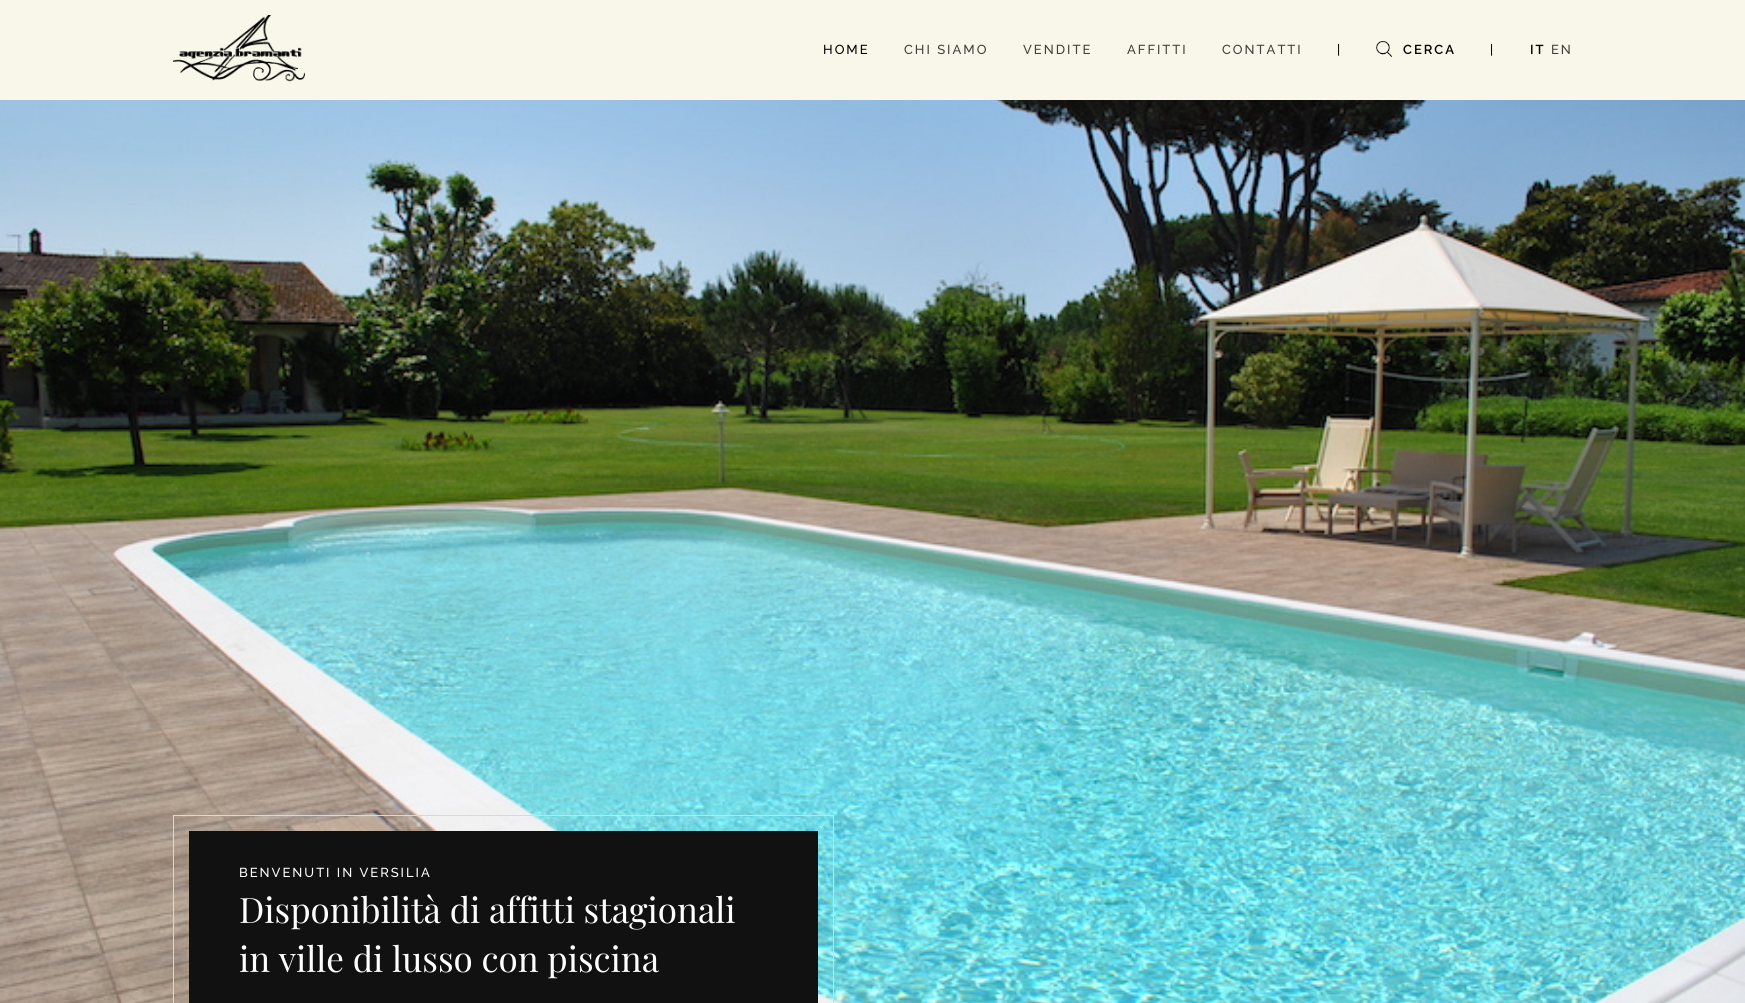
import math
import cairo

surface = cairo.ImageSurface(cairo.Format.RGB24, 1745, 1003)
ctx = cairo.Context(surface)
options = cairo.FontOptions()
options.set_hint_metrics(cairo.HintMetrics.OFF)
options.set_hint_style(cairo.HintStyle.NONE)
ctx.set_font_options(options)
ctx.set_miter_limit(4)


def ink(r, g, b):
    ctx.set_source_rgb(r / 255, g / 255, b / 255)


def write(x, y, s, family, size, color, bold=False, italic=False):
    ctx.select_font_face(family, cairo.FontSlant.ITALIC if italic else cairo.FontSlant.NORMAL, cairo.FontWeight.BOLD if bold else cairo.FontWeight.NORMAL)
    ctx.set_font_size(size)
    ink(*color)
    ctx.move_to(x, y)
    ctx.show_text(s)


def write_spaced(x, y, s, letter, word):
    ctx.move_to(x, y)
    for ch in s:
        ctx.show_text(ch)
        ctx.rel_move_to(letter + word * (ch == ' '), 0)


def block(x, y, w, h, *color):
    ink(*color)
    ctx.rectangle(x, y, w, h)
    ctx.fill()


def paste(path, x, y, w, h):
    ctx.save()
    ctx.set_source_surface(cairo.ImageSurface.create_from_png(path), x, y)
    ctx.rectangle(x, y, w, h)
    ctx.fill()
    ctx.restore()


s1 = dict(family="Playfair Display", size=35, color=(255, 255, 255))

ink(255, 255, 255)
ctx.paint()
block(0, 0, 1745, 100, 249, 247, 233)
paste("pic1.png", 173, 15, 132, 67)
ctx.select_font_face("Raleway Medium")
ctx.set_font_size(13)
ink(0, 0, 0)
write_spaced(823, 54, "HOME", 2, 0)
ink(63, 63, 60)
write_spaced(904, 54, "CHI SIAMO", 2, 0)
write_spaced(1023, 54, "VENDITE", 2, 0)
write_spaced(1127, 54, "AFFITTI", 2, 0)
write_spaced(1222, 54, "CONTATTI", 2, 0)
ink(0, 0, 0)
write_spaced(1337, 54, "|", 2, 0)
paste("pic2.png", 1376, 41, 16, 16)
ctx.select_font_face("Raleway SemiBold")
write_spaced(1403, 54, "CERCA", 2, 0)
ctx.select_font_face("Raleway Medium")
write_spaced(1490, 54, "|", 2, 0)
ctx.select_font_face("Raleway SemiBold")
write_spaced(1530, 54, "IT", 2, 0)
ctx.select_font_face("Raleway Medium")
ink(63, 63, 60)
write_spaced(1551, 54, "EN", 2, 0)
paste("pic3.png", 0, 100, 1745, 903)
ctx.rectangle(173.5, 815.5, 660, 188)
ink(228, 220, 164)
ctx.set_line_width(1)
ctx.stroke()
block(189, 831, 629, 172, 17, 17, 17)
ink(255, 255, 255)
write_spaced(239, 877, "BENVENUTI IN VERSILIA", 2, 0)
write(239, 923, "Disponibilità di affitti stagionali", **s1)
write(239, 972, "in ville di lusso con piscina", **s1)
surface.write_to_png("screenshot.png")
